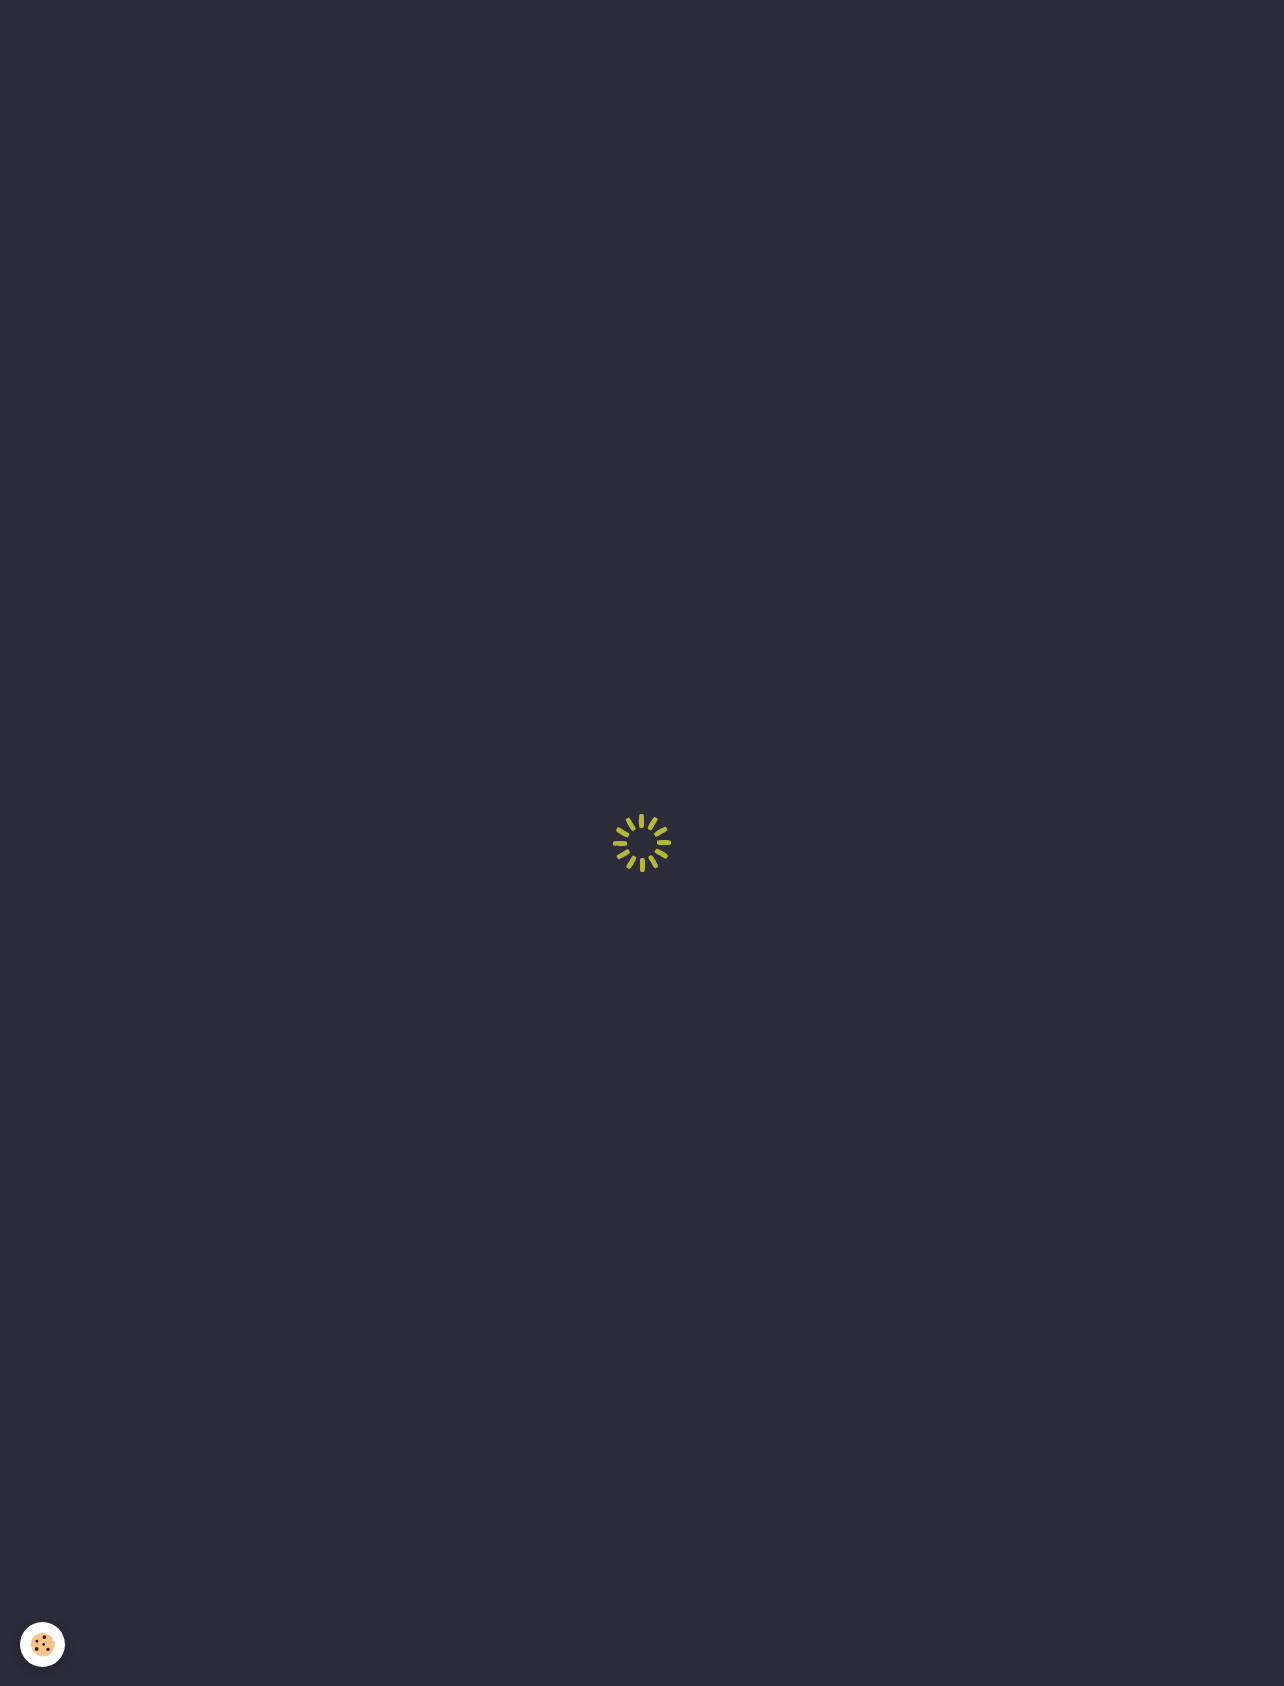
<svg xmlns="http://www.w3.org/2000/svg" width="1284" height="1686">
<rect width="100%" height="100%" fill="#2b2b3a"/>
<path fill="#b6b738" d="M640 814h3c1.5 1 1 6 1 7c0 1 .5 6-1 7h-3c-1.5 0-1.5-14 0-14zm15 3l2.5 1.5c1 1.5-2.5 5.5-3 6.5c-.5 1-2.5 5.5-4 5.5l-2.5-1.5c-1.5-1 5.5-13 7-12z"/>
<path fill="#b6b738" d="M666 827l1.5 2.5c0 1.5-4.5 3.5-5.5 4c-1 .5-5 4-6.5 3l-1.5-2.5c-.5-1.5 11.5-8.5 12-7zm5 14v3c-1 1.5-6 1-7 1c-1 0-6 .5-7-1v-3c0-1.5 14-1.5 14 0zm-3 15l-1.5 2.5c-1.5 1-5.5-2.5-6.5-3c-1-.5-5.5-2.5-5.5-4l1.5-2.5c1-1.5 13 5.5 12 7z"/>
<path fill="#b6b738" d="M658 867l-2.5 1.5c-1.5 0-3.5-4.5-4-5.5c-.5-1-4-5-3-6.5l2.5-1.5c1.5-.5 8.5 11.5 7 12zm-14 5h-3c-1.5-1-1-6-1-7c0-1-.5-6 1-7h3c1.5 0 1.5 14 0 14zm-15-3l-2.5-1.5c-1-1.5 2.5-5.5 3-6.5c.5-1 2.5-5.5 4-5.5l2.5 1.5c1.5 1-5.5 13-7 12z"/>
<path fill="#b6b738" d="M618 859l-1.5-2.5c0-1.5 4.5-3.5 5.5-4c1-.5 5-4 6.5-3l1.5 2.5c.5 1.5-11.5 8.5-12 7zm-5-14v-3c1-1.5 6-1 7-1c1 0 6-.5 7 1v3c0 1.5-14 1.5-14 0zm3-15l1.5-2.5c1.5-1 5.5 2.5 6.5 3c1 .5 5.5 2.5 5.5 4l-1.5 2.5c-1 1.5-13-5.5-12-7z"/>
<path fill="#b6b738" d="M626 819l2.5-1.5c1.5 0 3.5 4.5 4 5.5c.5 1 4 5 3 6.5l-2.5 1.5c-1.5 .5-8.5-11.5-7-12z"/>
<rect fill="#0000003d" filter="blur(5px)" x="20" y="1625" width="45" height="45" rx="22.5"/>
<circle fill="#fff" cx="42.5" cy="1644.5" r="22.5"/>
<image href="1.png" x="30" y="1632" width="25" height="25"/>
</svg>
